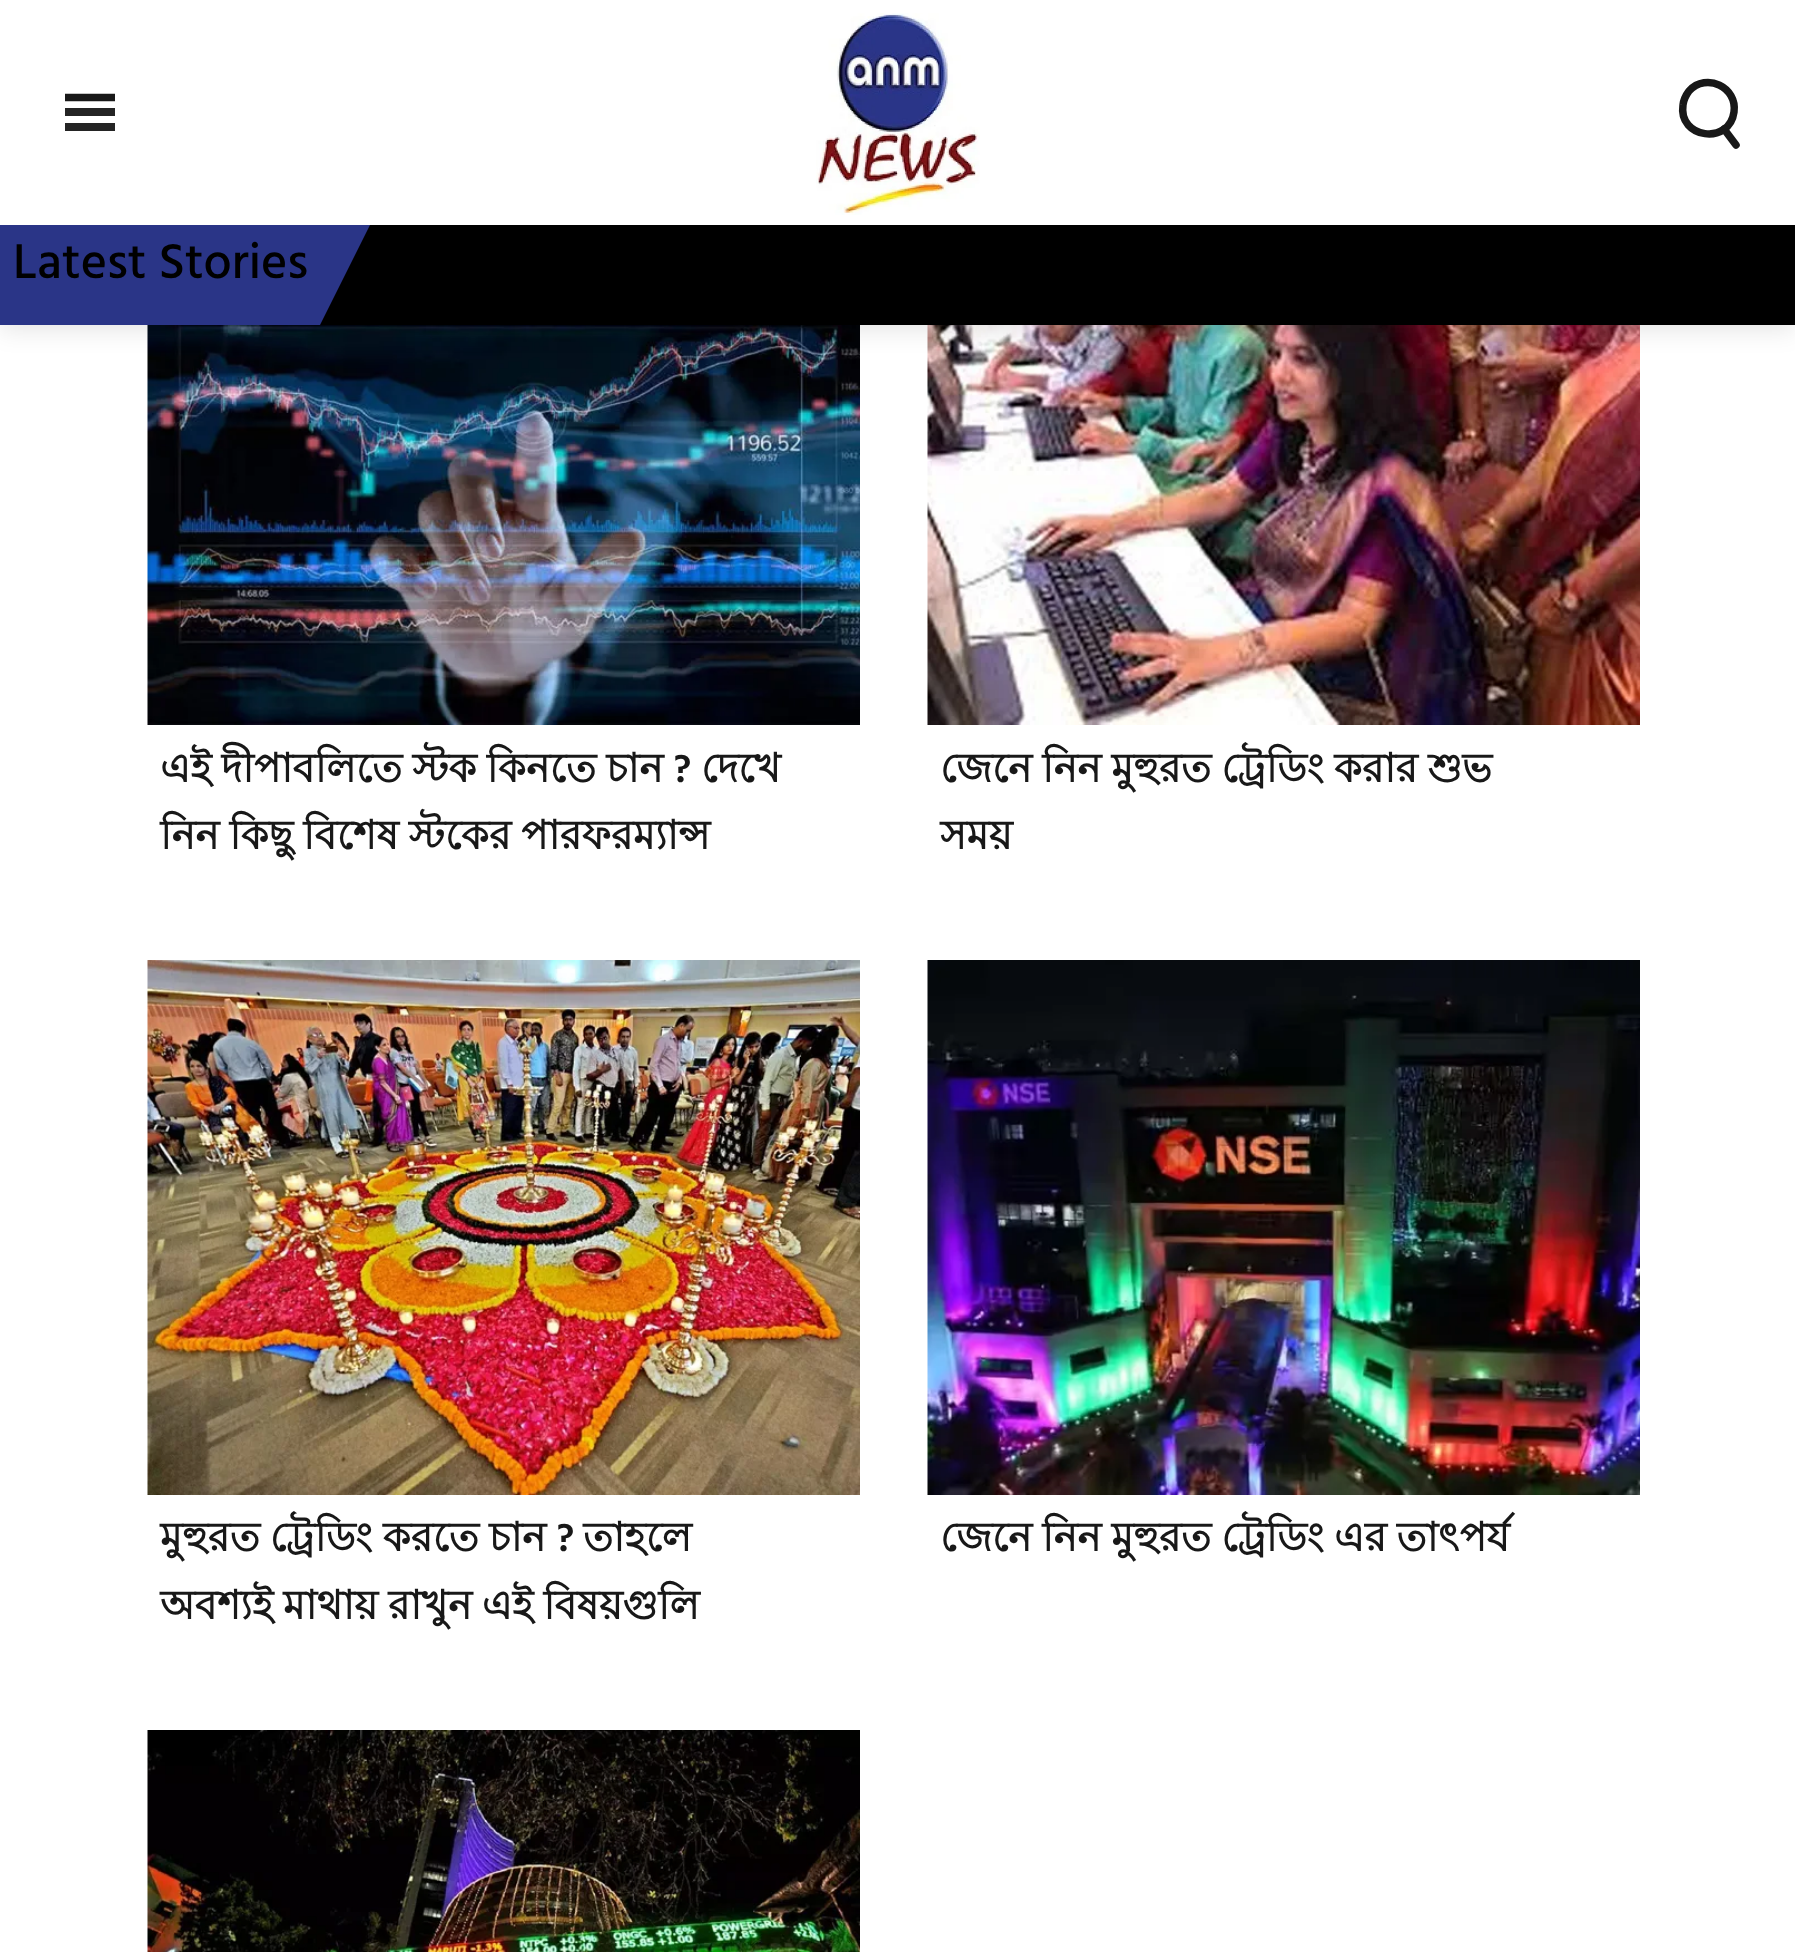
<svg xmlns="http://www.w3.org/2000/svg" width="1795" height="1952">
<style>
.a{font:500 50px Hind;fill:#000}
.b{font:bold 40px Lohit Bengali;fill:#181818}
.c{font:600 40px Hind;fill:#181818}
</style>
<defs>
<clipPath id="clip1"><path d="M148 1495h650v148H148z"/></clipPath>
</defs>
<rect width="100%" height="100%" fill="#fff"/>
<image href="2.png" x="147" y="325" width="713" height="400"/>
<image href="3.png" x="927" y="325" width="713" height="400"/>
<path fill="#0000001a" filter="blur(12.5px)" d="M0 5h1795v325H0z"/>
<path fill="#fff" d="M0 0h1795v225H0z"/>
<path fill="none" stroke="#181818" stroke-width="7.6" d="M65 97.5h50"/>
<path fill="#242424" d="M65 108h50v8H65z"/>
<path fill="#242424" d="M65 123h50v8H65z"/>
<image href="1.png" x="816" y="13" width="164" height="202"/>
<path fill="none" stroke="#181818" stroke-width="7.5" stroke-linecap="round" stroke-linejoin="round" d="M1734 112c-4.5 33.5-56 26.5-51-7c.5-5 3-10 6-14c17.5-19 48.5-3.5 45 21z"/>
<path fill="none" stroke="#181818" stroke-width="7.5" stroke-linecap="round" stroke-linejoin="round" d="M1736 145l-12-16"/>
<path fill="#2a3587" d="M0 225h320v100H0z"/>
<path fill="#000" d="M320 225h1475v100H320z"/>
<path fill="#2a3587" d="M320 325v-100h50z"/>
<image href="4.png" x="147" y="960" width="713" height="535"/>
<image href="5.png" x="927" y="960" width="713" height="535"/>
<image href="6.png" x="147" y="1730" width="713" height="222"/>
<text class="a" x="13" y="278">Latest Stories</text>
<text class="b" x="160" y="782" word-spacing="-1">এই দীপাবলিতে স্টক কিনতে চান</text>
<text class="c" x="673" y="782">?</text>
<text class="b" x="701" y="782">দেখে</text>
<text class="b" x="160" y="849" word-spacing="-1">নিন কিছু বিশেষ স্টকের পারফরম্যান্স</text>
<text class="b" x="940" y="782" word-spacing="-1">জেনে নিন মুহুরত ট্রেডিং করার শুভ</text>
<text class="b" x="940" y="849">সময়</text>
<g clip-path="url(#clip1)">
<text class="b" x="160" y="1551" word-spacing="-1">মুহুরত ট্রেডিং করতে চান</text>
</g>
<text class="c" x="556" y="1551">?</text>
<text class="b" x="583" y="1551">তাহলে</text>
<text class="b" x="160" y="1619" word-spacing="-1">অবশ্যই মাথায় রাখুন এই বিষয়গুলি</text>
<text class="b" x="940" y="1551" word-spacing="-1">জেনে নিন মুহুরত ট্রেডিং এর তাৎপর্য</text>
</svg>
